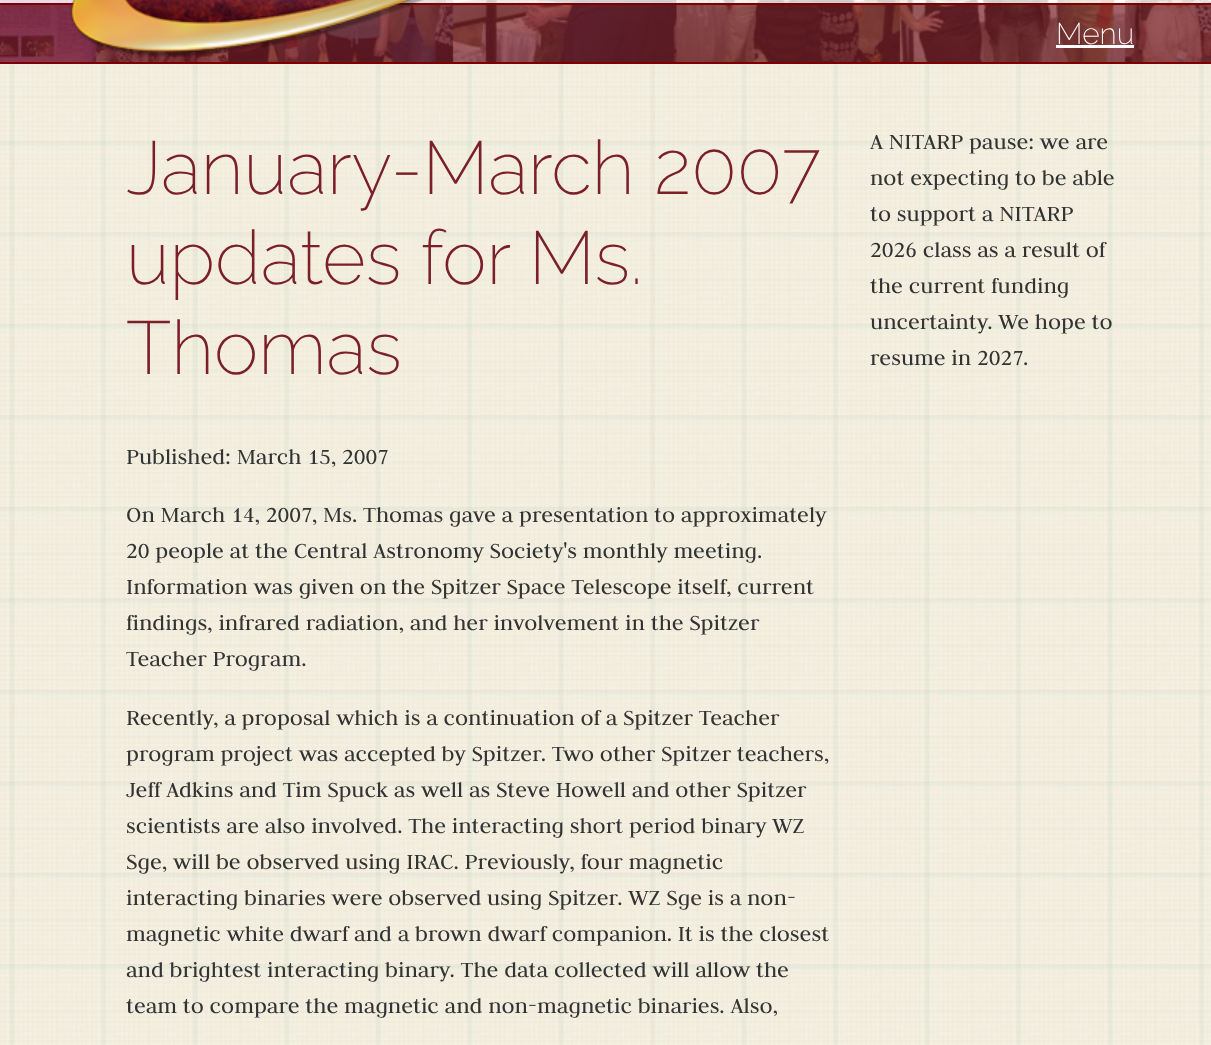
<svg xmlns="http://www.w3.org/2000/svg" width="1211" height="1045">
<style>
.a{font:200 30px Raleway;fill:#fff}
.b{font:200 75px Raleway;fill:#7b202a}
.c{font:24px Judson;fill:#333}
</style>
<rect width="100%" height="100%" fill="#fff"/>
<image href="1.png" x="0" y="64" width="1211" height="981"/>
<image href="2.png" x="0" y="0" width="1211" height="62"/>
<path fill="#ffffffcc" d="M0 0h1211v3H0z"/>
<path fill="#7b202ab3" d="M0 5h1211v57H0z"/>
<path fill="#800000" d="M0 3h1211v2H0z"/>
<image href="3.png" x="70" y="0" width="354" height="57"/>
<path fill="#800000" d="M0 62h1211v2H0z"/>
<path fill="#fff" d="M1056 45h78v3H1056z"/>
<text class="a" x="1056" y="44">Menu</text>
<text class="b" x="126" y="194">January-March 2007</text>
<text class="b" x="126" y="284">updates for Ms.</text>
<text class="b" x="126" y="374">Thomas</text>
<text class="c" x="126" y="464">Published: March 15, 2007</text>
<text class="c" x="126" y="522">On March 14, 2007, Ms. Thomas gave a presentation to approximately</text>
<text class="c" x="126" y="558">20 people at the Central Astronomy Society's monthly meeting.</text>
<text class="c" x="126" y="594">Information was given on the Spitzer Space Telescope itself, current</text>
<text class="c" x="126" y="630">findings, infrared radiation, and her involvement in the Spitzer</text>
<text class="c" x="126" y="666">Teacher Program.</text>
<text class="c" x="126" y="725">Recently, a proposal which is a continuation of a Spitzer Teacher</text>
<text class="c" x="126" y="761">program project was accepted by Spitzer. Two other Spitzer teachers,</text>
<text class="c" x="126" y="797">Jeff Adkins and Tim Spuck as well as Steve Howell and other Spitzer</text>
<text class="c" x="126" y="833">scientists are also involved. The interacting short period binary WZ</text>
<text class="c" x="126" y="869">Sge, will be observed using IRAC. Previously, four magnetic</text>
<text class="c" x="126" y="905">interacting binaries were observed using Spitzer. WZ Sge is a non-</text>
<text class="c" x="126" y="941">magnetic white dwarf and a brown dwarf companion. It is the closest</text>
<text class="c" x="126" y="977">and brightest interacting binary. The data collected will allow the</text>
<text class="c" x="126" y="1013">team to compare the magnetic and non-magnetic binaries. Also,</text>
<text class="c" x="870" y="149">A NITARP pause: we are</text>
<text class="c" x="870" y="185">not expecting to be able</text>
<text class="c" x="870" y="221">to support a NITARP</text>
<text class="c" x="870" y="257">2026 class as a result of</text>
<text class="c" x="870" y="293">the current funding</text>
<text class="c" x="870" y="329">uncertainty. We hope to</text>
<text class="c" x="870" y="365">resume in 2027.</text>
</svg>
